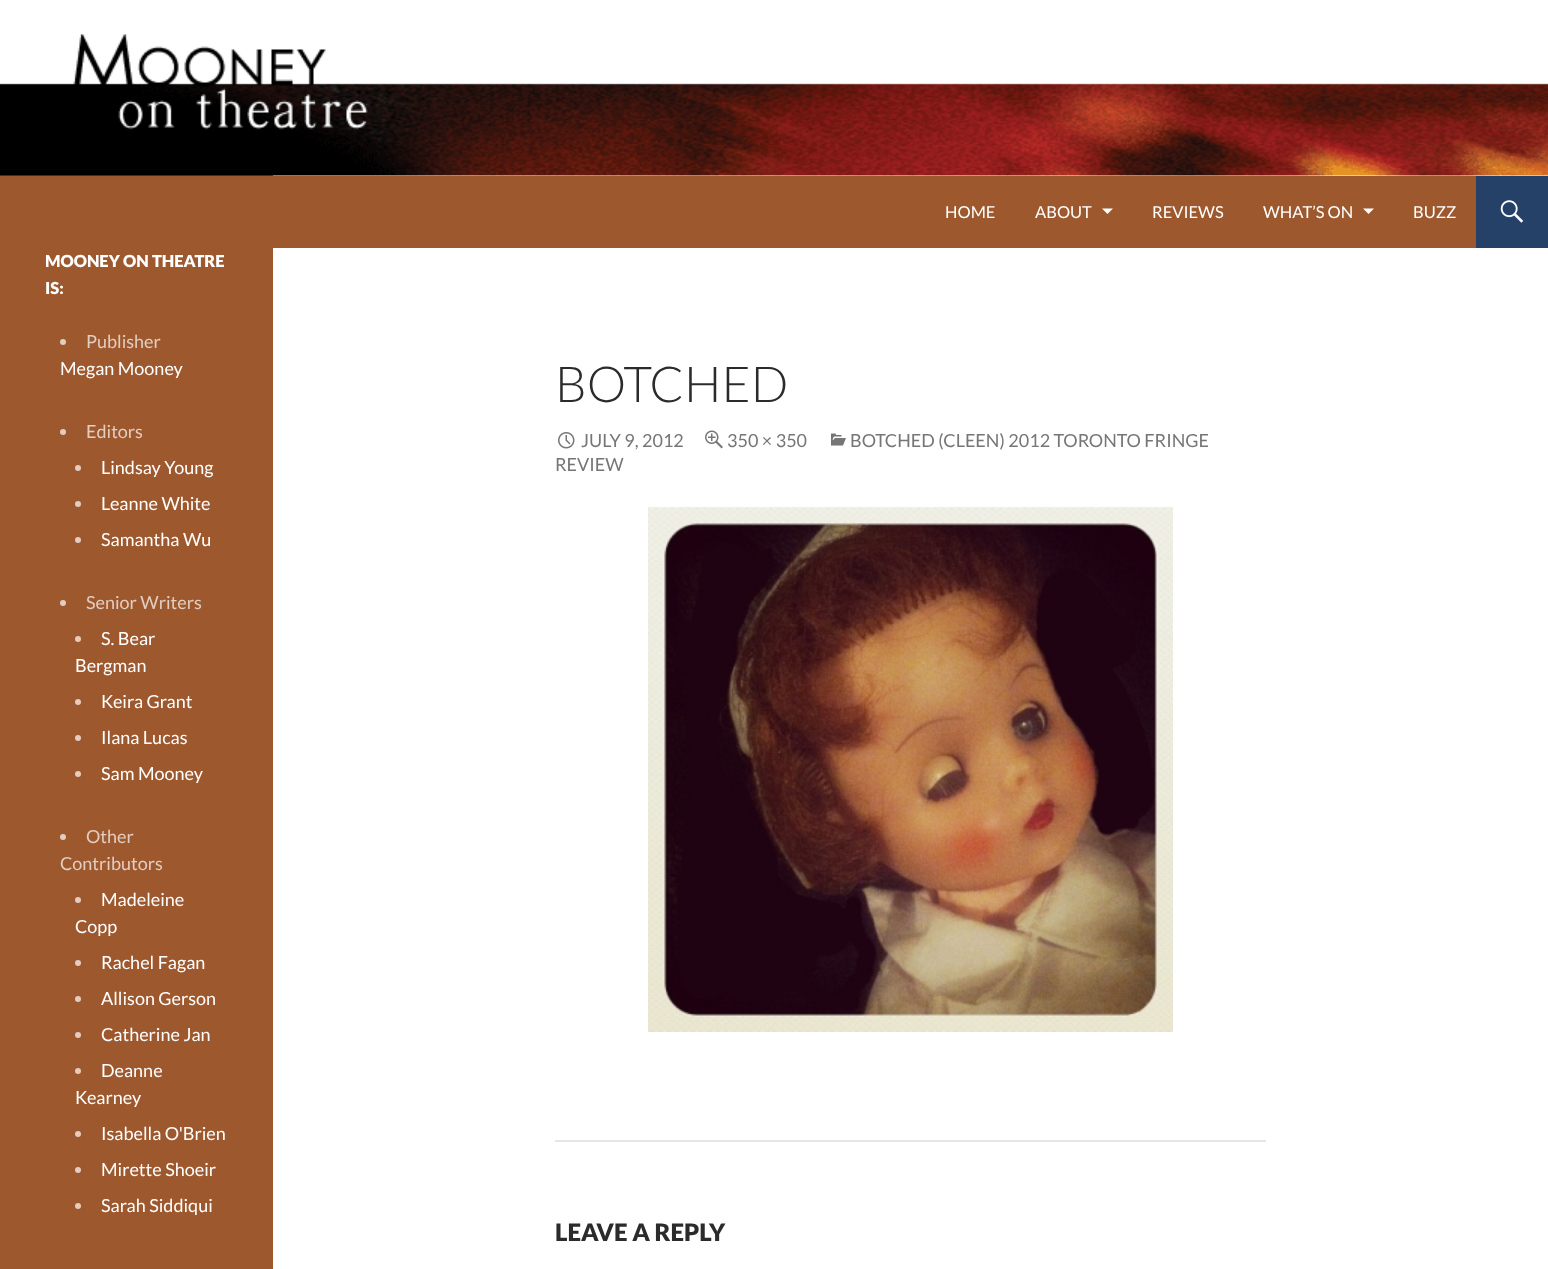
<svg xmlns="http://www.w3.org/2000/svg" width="1548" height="1269">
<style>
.a{font:16.5px Lato;fill:#fff}
.b{font:900 16.5px Lato;fill:#fff}
.c{font:18px Lato;fill:#e2cdc0}
.d{font:18px Lato;fill:#fff}
.e{font:300 49.5px Lato;fill:#2b2b2b}
.f{font:18px Lato;fill:#767676}
.g{font:900 24px Lato;fill:#2b2b2b}
</style>
<rect width="100%" height="100%" fill="#fff"/>
<path fill="#9d582e" d="M0 175h273v1094H0z"/>
<image href="1.png" x="0" y="0" width="1548" height="176"/>
<path fill="#9d582e" d="M273 176h1203v72H273z"/>
<path fill="#fff" d="M1102 208.5l5.5 5.5l5.5-5.5z"/>
<path fill="#fff" d="M1363 208.5l5.5 5.5l5.5-5.5z"/>
<path fill="#254167" d="M1476 176h72v72H1476z"/>
<image href="2.png" x="1500" y="200" width="24" height="23"/>
<circle fill="#e2cdc0" cx="63" cy="342" r="3"/>
<circle fill="#e2cdc0" cx="63" cy="432" r="3"/>
<circle fill="#e2cdc0" cx="78" cy="468" r="3"/>
<circle fill="#e2cdc0" cx="78" cy="504" r="3"/>
<circle fill="#e2cdc0" cx="78" cy="540" r="3"/>
<circle fill="#e2cdc0" cx="63" cy="603" r="3"/>
<circle fill="#e2cdc0" cx="78" cy="639" r="3"/>
<circle fill="#e2cdc0" cx="78" cy="702" r="3"/>
<circle fill="#e2cdc0" cx="78" cy="738" r="3"/>
<circle fill="#e2cdc0" cx="78" cy="774" r="3"/>
<circle fill="#e2cdc0" cx="63" cy="837" r="3"/>
<circle fill="#e2cdc0" cx="78" cy="900" r="3"/>
<circle fill="#e2cdc0" cx="78" cy="963" r="3"/>
<circle fill="#e2cdc0" cx="78" cy="999" r="3"/>
<circle fill="#e2cdc0" cx="78" cy="1035" r="3"/>
<circle fill="#e2cdc0" cx="78" cy="1071" r="3"/>
<circle fill="#e2cdc0" cx="78" cy="1134" r="3"/>
<circle fill="#e2cdc0" cx="78" cy="1170" r="3"/>
<circle fill="#e2cdc0" cx="78" cy="1206" r="3"/>
<image href="3.png" x="831" y="433" width="15" height="13"/>
<image href="4.png" x="558" y="432" width="17" height="17"/>
<image href="5.png" x="705" y="430" width="18" height="19"/>
<image href="6.png" x="648" y="507" width="525" height="525"/>
<path fill="#e6e6e6" d="M555 1140h711v2H555z"/>
<text class="a" x="945" y="218">HOME</text>
<text class="a" x="1035" y="218">ABOUT</text>
<text class="a" x="1152" y="218">REVIEWS</text>
<text class="a" x="1263" y="218">WHAT’S ON</text>
<text class="a" x="1413" y="218">BUZZ</text>
<text class="b" x="45" y="267">MOONEY ON THEATRE</text>
<text class="b" x="45" y="294">IS:</text>
<text class="c" x="86" y="348">Publisher</text>
<text class="d" x="60" y="375">Megan Mooney</text>
<text class="c" x="86" y="438">Editors</text>
<text class="d" x="101" y="474">Lindsay Young</text>
<text class="d" x="101" y="510">Leanne White</text>
<text class="d" x="101" y="546">Samantha Wu</text>
<text class="c" x="86" y="609">Senior Writers</text>
<text class="d" x="101" y="645">S. Bear</text>
<text class="d" x="75" y="672">Bergman</text>
<text class="d" x="101" y="708">Keira Grant</text>
<text class="d" x="101" y="744">Ilana Lucas</text>
<text class="d" x="101" y="780">Sam Mooney</text>
<text class="c" x="86" y="843">Other</text>
<text class="c" x="60" y="870">Contributors</text>
<text class="d" x="101" y="906">Madeleine</text>
<text class="d" x="75" y="933">Copp</text>
<text class="d" x="101" y="969">Rachel Fagan</text>
<text class="d" x="101" y="1005">Allison Gerson</text>
<text class="d" x="101" y="1041">Catherine Jan</text>
<text class="d" x="101" y="1077">Deanne</text>
<text class="d" x="75" y="1104">Kearney</text>
<text class="d" x="101" y="1140">Isabella O'Brien</text>
<text class="d" x="101" y="1176">Mirette Shoeir</text>
<text class="d" x="101" y="1212">Sarah Siddiqui</text>
<text class="e" x="555" y="402">BOTCHED</text>
<text class="f" x="850" y="447">BOTCHED (CLEEN) 2012 TORONTO FRINGE</text>
<text class="f" x="555" y="471">REVIEW</text>
<text class="f" x="581" y="447">JULY 9, 2012</text>
<text class="f" x="727" y="447">350 × 350</text>
<text class="g" x="555" y="1241">LEAVE A REPLY</text>
</svg>
